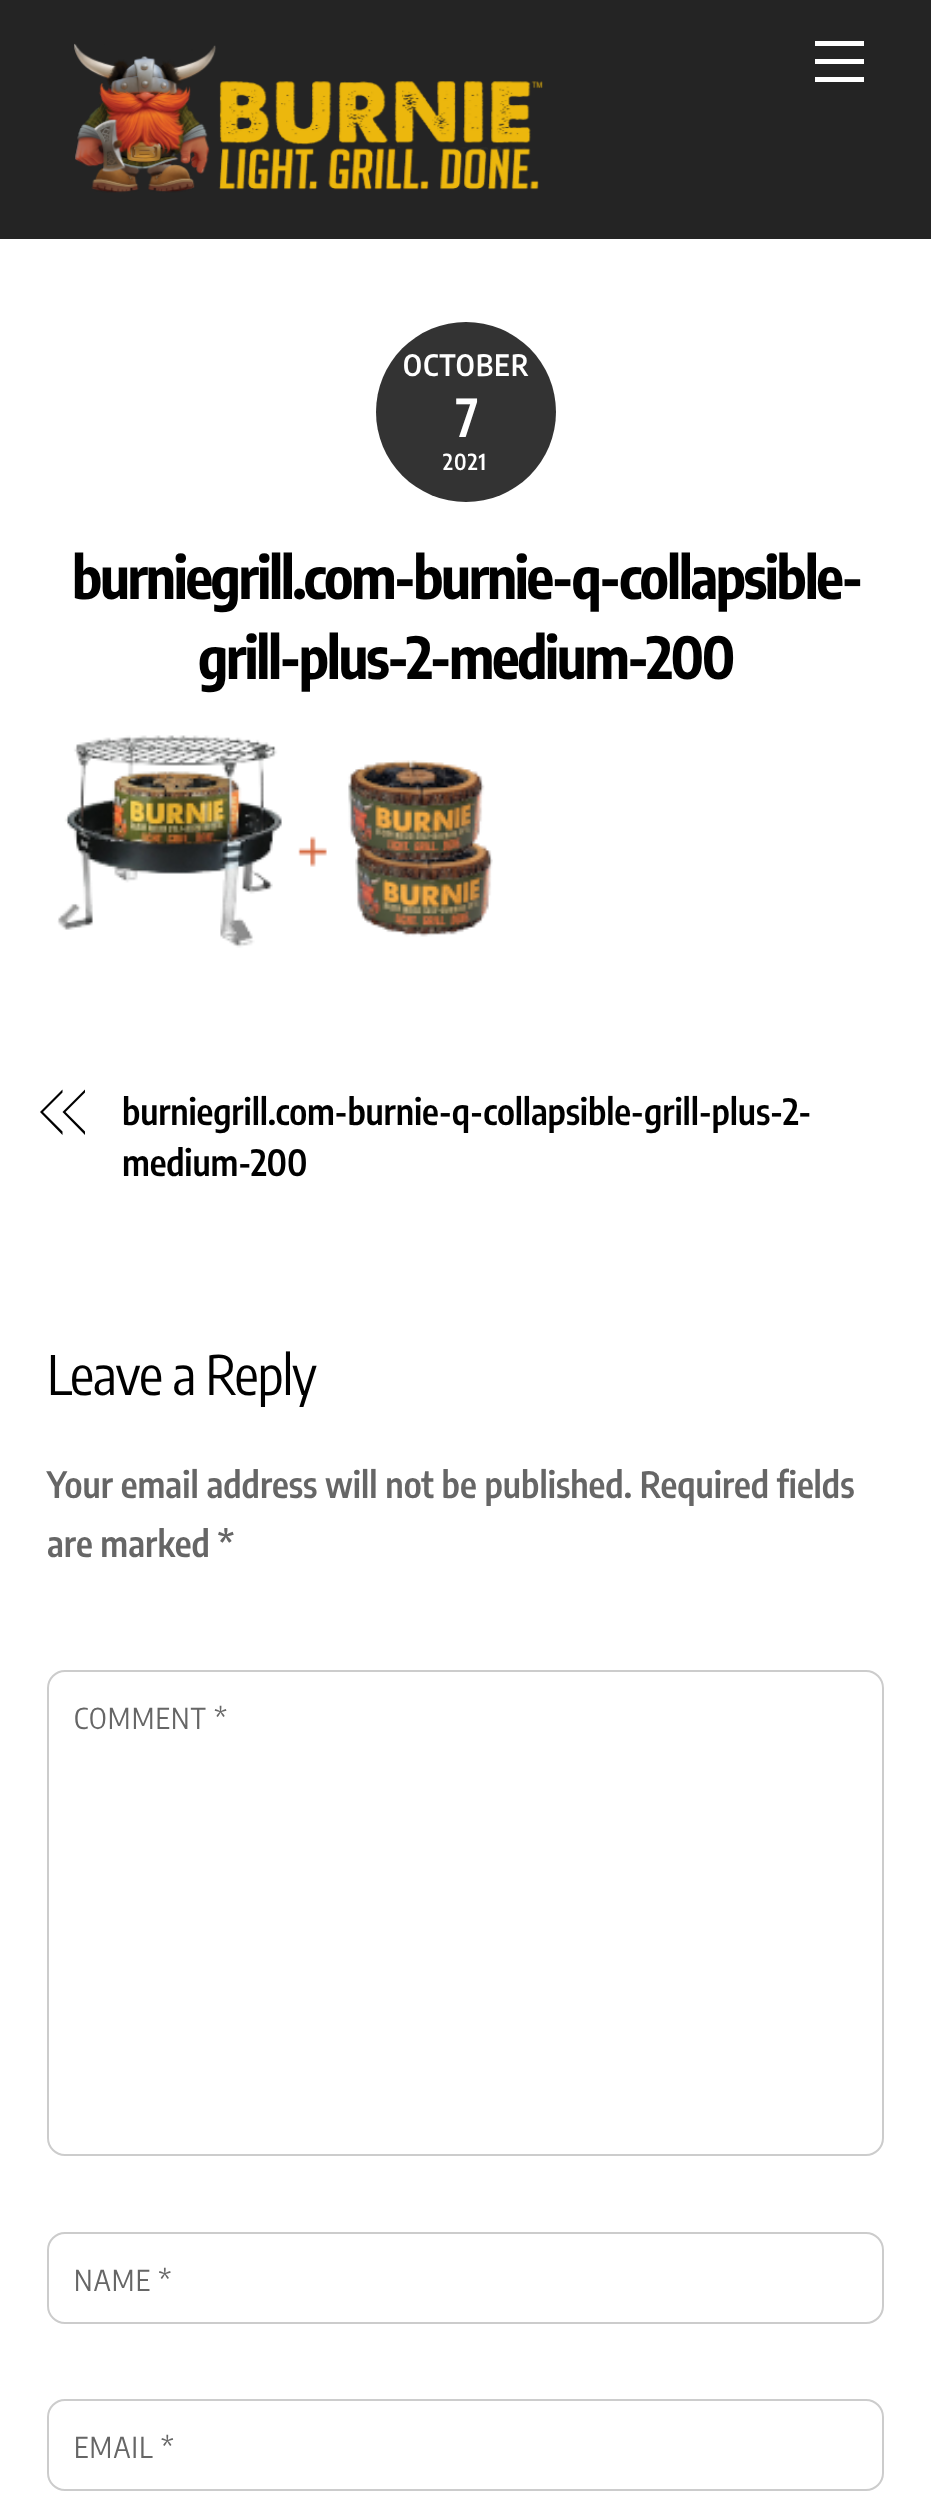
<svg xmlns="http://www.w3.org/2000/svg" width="931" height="2497">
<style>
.a{font:600 29.25px Encode Sans Condensed;letter-spacing:1.25px;fill:#fff}
.b{font:600 52px Encode Sans Condensed;letter-spacing:-3px;fill:#fff}
.c{font:600 22px Encode Sans Condensed;letter-spacing:1.25px;fill:#fff}
.d{font:bold 57.6px Encode Sans Condensed;letter-spacing:-2.3px;fill:#000}
.e{font:600 36px Encode Sans Condensed;letter-spacing:-0.18px;fill:#000}
.f{font:54px Encode Sans Condensed;letter-spacing:-1.1px;fill:#000}
.g{font:600 36px Encode Sans Condensed;fill:#666}
.h{font:28.75px Encode Sans Condensed;letter-spacing:1.25px;fill:#666}
</style>
<rect width="100%" height="100%" fill="#fff"/>
<path fill="#242424" d="M0 0h931v239H0z"/>
<image href="1.png" x="74" y="43" width="469" height="150"/>
<path fill="#fff" d="M815 77h49v5H815z"/>
<path fill="#fff" d="M815 41h49v5H815z"/>
<path fill="#fff" d="M815 59h49v5H815z"/>
<circle fill="#333" cx="466" cy="412" r="90"/>
<image href="2.png" x="57" y="735" width="436" height="213"/>
<path fill="#000" d="M40 1112l22.5-22.5v3l-19.5 19.5zm22.5 23l-22.5-23h3l19.5 19.5z"/>
<path fill="#000" d="M62.5 1112l22.5-22.5v3l-19.5 19.5zm22.5 23l-22.5-23h3l19.5 19.5z"/>
<rect fill="none" stroke="#ccc" stroke-width="2" x="48" y="1671" width="835" height="484" rx="17"/>
<rect fill="none" stroke="#ccc" stroke-width="2" x="48" y="2233" width="835" height="90" rx="17"/>
<rect fill="none" stroke="#ccc" stroke-width="2" x="48" y="2400" width="835" height="90" rx="17"/>
<text class="a" x="403" y="376">OCTOBER</text>
<text class="b" x="456" y="437">7</text>
<text class="c" x="443" y="470">2021</text>
<text class="d" x="72" y="599">burniegrill.com-burnie-q-collapsible-</text>
<text class="d" x="198" y="679">grill-plus-2-medium-200</text>
<text class="e" x="122" y="1125">burniegrill.com-burnie-q-collapsible-grill-plus-2-</text>
<text class="e" x="122" y="1176">medium-200</text>
<text class="f" x="47" y="1395">Leave a Reply</text>
<text class="g" x="47" y="1498">Your email address will not be published. Required fields</text>
<text class="g" x="47" y="1557">are marked *</text>
<text class="h" x="74" y="1729">COMMENT *</text>
<text class="h" x="74" y="2291">NAME *</text>
<text class="h" x="74" y="2458">EMAIL *</text>
</svg>
